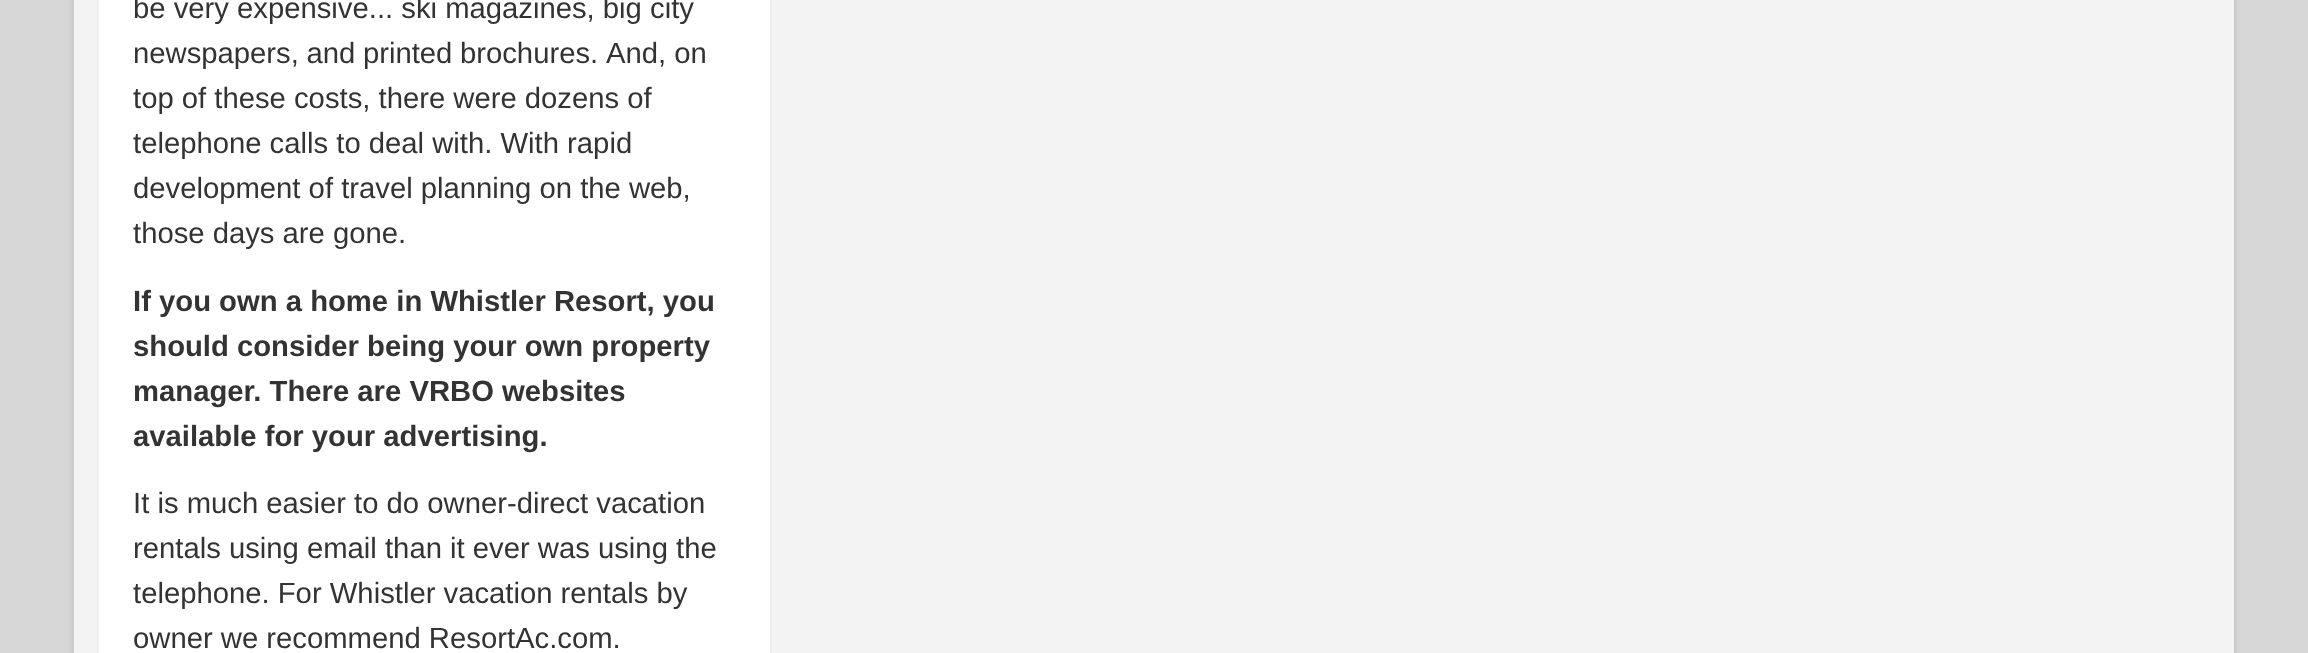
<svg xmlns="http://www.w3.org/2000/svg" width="2308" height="653">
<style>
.a{font:29.25px Liberation Sans;fill:#333}
.b{font:bold 29.25px Liberation Sans;fill:#333}
</style>
<rect width="100%" height="100%" fill="#d7d7d7"/>
<rect fill="#00000026" filter="blur(3.5px)" x="74" y="-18" width="2160" height="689" rx="7"/>
<path fill="#f3f3f3" d="M74 0h2160v653H74z"/>
<path fill="#fff" stroke="#eee" stroke-width="2" d="M98 -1h673v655H98z"/>
<text class="a" x="133" y="18">be very expensive... ski magazines, big city</text>
<text class="a" x="133" y="63" word-spacing="-0.5">newspapers, and printed brochures.</text>
<text class="a" x="606" y="63">And, on</text>
<text class="a" x="133" y="108">top of these costs, there were dozens of</text>
<text class="a" x="133" y="153">telephone calls to deal with. With rapid</text>
<text class="a" x="133" y="198">development of travel planning on the web,</text>
<text class="a" x="133" y="243">those days are gone.</text>
<text class="b" x="133" y="311">If you own a home in Whistler Resort, you</text>
<text class="b" x="133" y="356">should consider being your own property</text>
<text class="b" x="133" y="401">manager. There are VRBO websites</text>
<text class="b" x="133" y="446">available for your advertising.</text>
<text class="a" x="133" y="513">It is much easier to do owner-direct vacation</text>
<text class="a" x="133" y="558">rentals using email than it ever was using the</text>
<text class="a" x="133" y="603">telephone. For Whistler vacation rentals by</text>
<text class="a" x="133" y="648">owner we recommend ResortAc.com.</text>
</svg>
